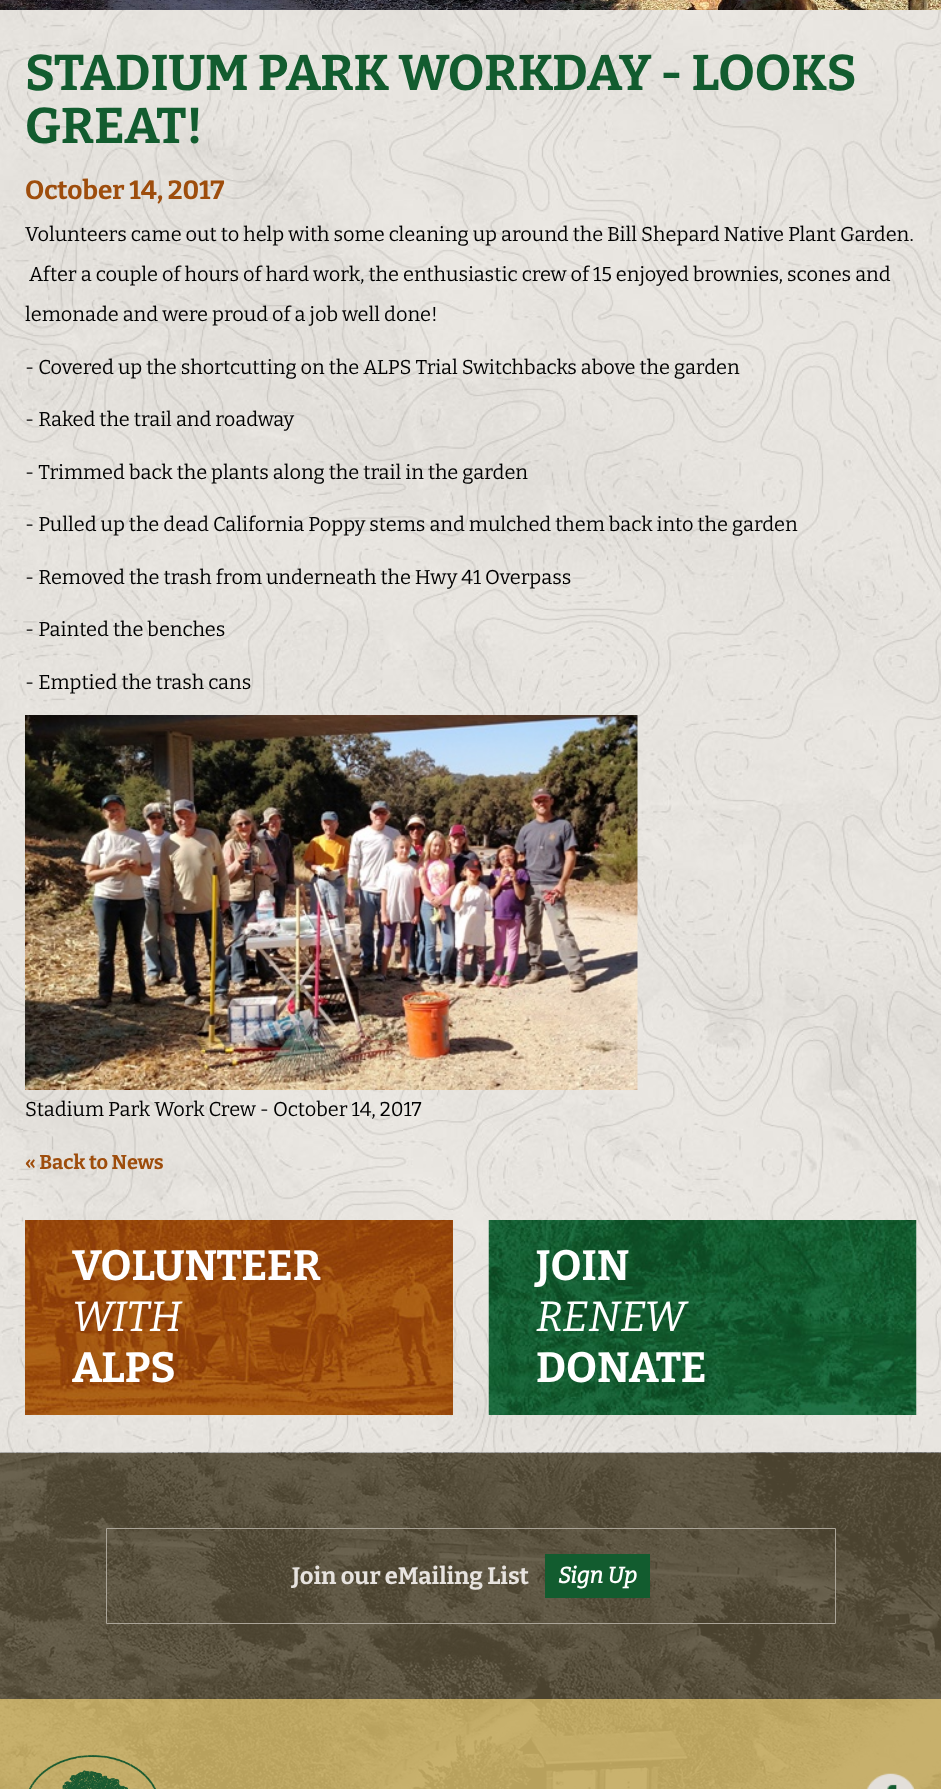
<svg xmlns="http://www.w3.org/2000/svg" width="941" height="1789">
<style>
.a{font:bold 50px Bitter;fill:#125c2f}
.b{font:bold 26.25px Bitter;fill:#9e4d0c}
.c{font:20px Bitter;fill:#000}
.d{font:bold 20px Bitter;fill:#9e4d0c}
.e{font:bold 42.25px Bitter;fill:#fff}
.f{font:italic 100 42.25px Bitter;fill:#fff}
.g{font:bold 23.75px Bitter;fill:#e7e3df}
.h{font:italic bold 22.5px Bitter;fill:#fff}
</style>
<rect width="100%" height="100%" fill="#fff"/>
<image href="1.png" x="0" y="10" width="941" height="1443"/>
<image href="2.png" x="0" y="0" width="941" height="10"/>
<image href="3.png" x="25" y="715" width="613" height="375"/>
<path fill="#9e4d0c" d="M452 1220h1v195H452z"/>
<image href="4.png" x="25" y="1220" width="428" height="195"/>
<image href="5.png" x="488" y="1220" width="429" height="195"/>
<image href="6.png" x="0" y="1452" width="941" height="337"/>
<path fill="#5c523bcc" d="M0 1453h941v246H0z"/>
<path fill="none" stroke="#aba599" d="M106.5 1528.5h729v95H106.5z"/>
<path fill="#125c2f" d="M545 1554h105v44H545z"/>
<path fill="#ccb267e6" d="M0 1699h941v90H0z"/>
<image href="7.png" x="29" y="1755" width="127" height="34"/>
<image href="8.png" x="866" y="1773" width="49" height="16"/>
<text class="a" x="25" y="90">STADIUM PARK WORKDAY - LOOKS</text>
<text class="a" x="25" y="143">GREAT!</text>
<text class="b" x="25" y="199">October 14, 2017</text>
<text class="c" x="25" y="241">Volunteers came out to help with some cleaning up around the Bill Shepard Native Plant Garden.</text>
<text class="c" x="29" y="281">After a couple of hours of hard work, the enthusiastic crew of 15 enjoyed brownies, scones and</text>
<text class="c" x="25" y="321">lemonade and were proud of a job well done!</text>
<text class="c" x="25" y="374">- Covered up the shortcutting on the ALPS Trial Switchbacks above the garden</text>
<text class="c" x="25" y="426">- Raked the trail and roadway</text>
<text class="c" x="25" y="479">- Trimmed back the plants along the trail in the garden</text>
<text class="c" x="25" y="531">- Pulled up the dead California Poppy stems and mulched them back into the garden</text>
<text class="c" x="25" y="584">- Removed the trash from underneath the Hwy 41 Overpass</text>
<text class="c" x="25" y="636">- Painted the benches</text>
<text class="c" x="25" y="689">- Emptied the trash cans</text>
<text class="c" x="25" y="1116">Stadium Park Work Crew - October 14, 2017</text>
<text class="d" x="25" y="1169">« Back to News</text>
<text class="e" x="72" y="1280">VOLUNTEER</text>
<text class="f" x="72" y="1331">WITH</text>
<text class="e" x="72" y="1382">ALPS</text>
<text class="e" x="536" y="1280">JOIN</text>
<text class="f" x="536" y="1331">RENEW</text>
<text class="e" x="536" y="1382">DONATE</text>
<text class="g" x="292" y="1584">Join our eMailing List</text>
<text class="h" x="558" y="1583">Sign Up</text>
</svg>
